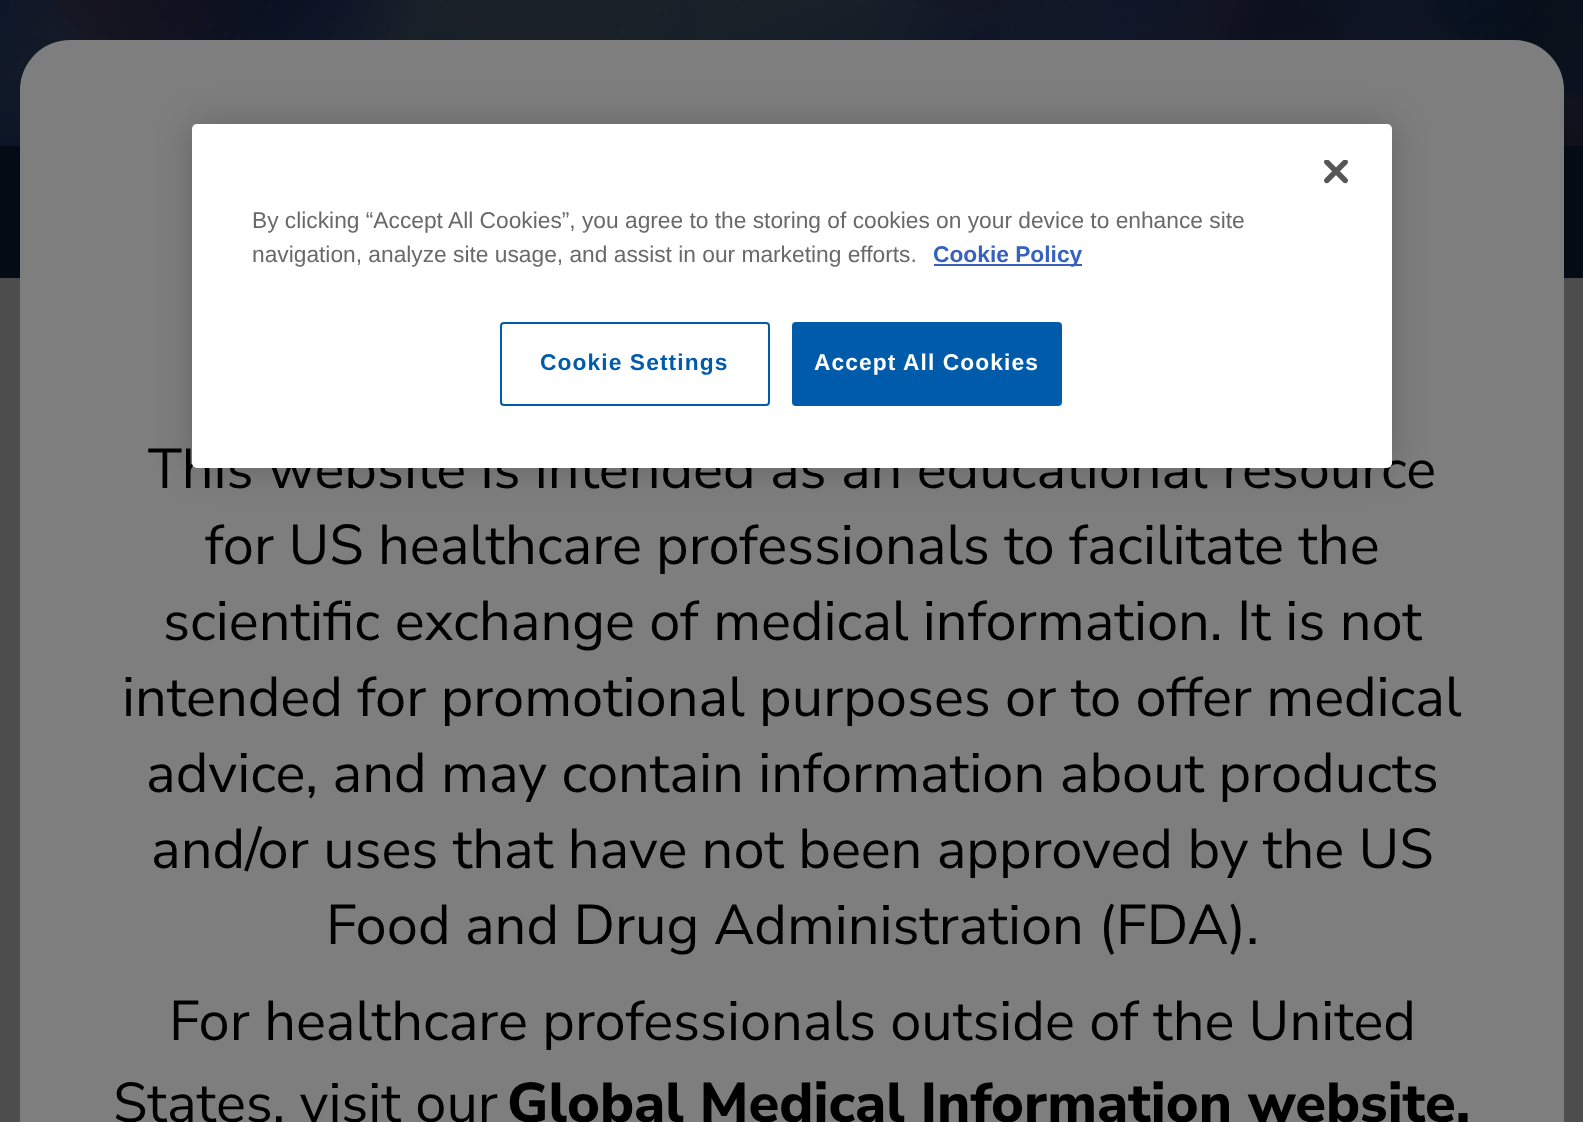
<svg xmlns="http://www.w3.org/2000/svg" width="1583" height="1122">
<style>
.a{font:200 56px Nunito Sans;fill:#000}
.b{font:bold 22.75px Liberation Sans;letter-spacing:1.1px;fill:#005cab}
.c{font:bold 22.75px Liberation Sans;letter-spacing:1.1px;fill:#fff}
.d{font:bold 22.75px Liberation Sans;fill:#3860be}
.e{font:22.75px Liberation Sans;fill:#696969}
.f{font:200 56px 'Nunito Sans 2';fill:#000}
</style>
<rect width="100%" height="100%" fill="#030c15"/>
<image href="2.png" x="0" y="0" width="1583" height="146"/>
<path fill="#4d4d4d" d="M0 278h1583v844H0z"/>
<rect fill="#7e7e7e" x="20" y="40" width="1544" height="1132" rx="50"/>
<rect fill="#00000033" filter="blur(18px)" x="192" y="124" width="1200" height="344" rx="5"/>
<text class="a" x="148" y="488">This website is intended as an educational resource</text>
<rect fill="#fff" x="192" y="124" width="1200" height="344" rx="5"/>
<image href="1.png" x="1324" y="160" width="24" height="24"/>
<rect fill="none" stroke="#005cab" stroke-width="2" x="501" y="323" width="268" height="82" rx="3"/>
<text class="b" x="540" y="370">Cookie Settings</text>
<rect fill="#005cab" stroke="#005cab" stroke-width="2" x="793" y="323" width="268" height="82" rx="3"/>
<text class="c" x="814" y="370">Accept All Cookies</text>
<path fill="#3860be" d="M934 264h148v2H934z"/>
<text class="d" x="933" y="262">Cookie Policy</text>
<text class="e" x="252" y="262">navigation, analyze site usage, and assist in our marketing efforts.</text>
<text class="e" x="252" y="228">By clicking “Accept All Cookies”, you agree to the storing of cookies on your device to enhance site</text>
<text class="a" x="205" y="564">for US healthcare professionals to facilitate the</text>
<text class="a" x="163" y="640">scientific exchange of medical information. It is not</text>
<text class="a" x="122" y="716">intended for promotional purposes or to offer medical</text>
<text class="a" x="146" y="792">advice, and may contain information about products</text>
<text class="a" x="151" y="868">and/or uses that have not been approved by the US</text>
<text class="a" x="326" y="944">Food and Drug Administration (FDA).</text>
<text class="a" x="169" y="1040">For healthcare professionals outside of the United</text>
<text class="a" x="113" y="1122">States, visit our</text>
<text class="f" x="507" y="1122">Global Medical Information website.</text>
</svg>
